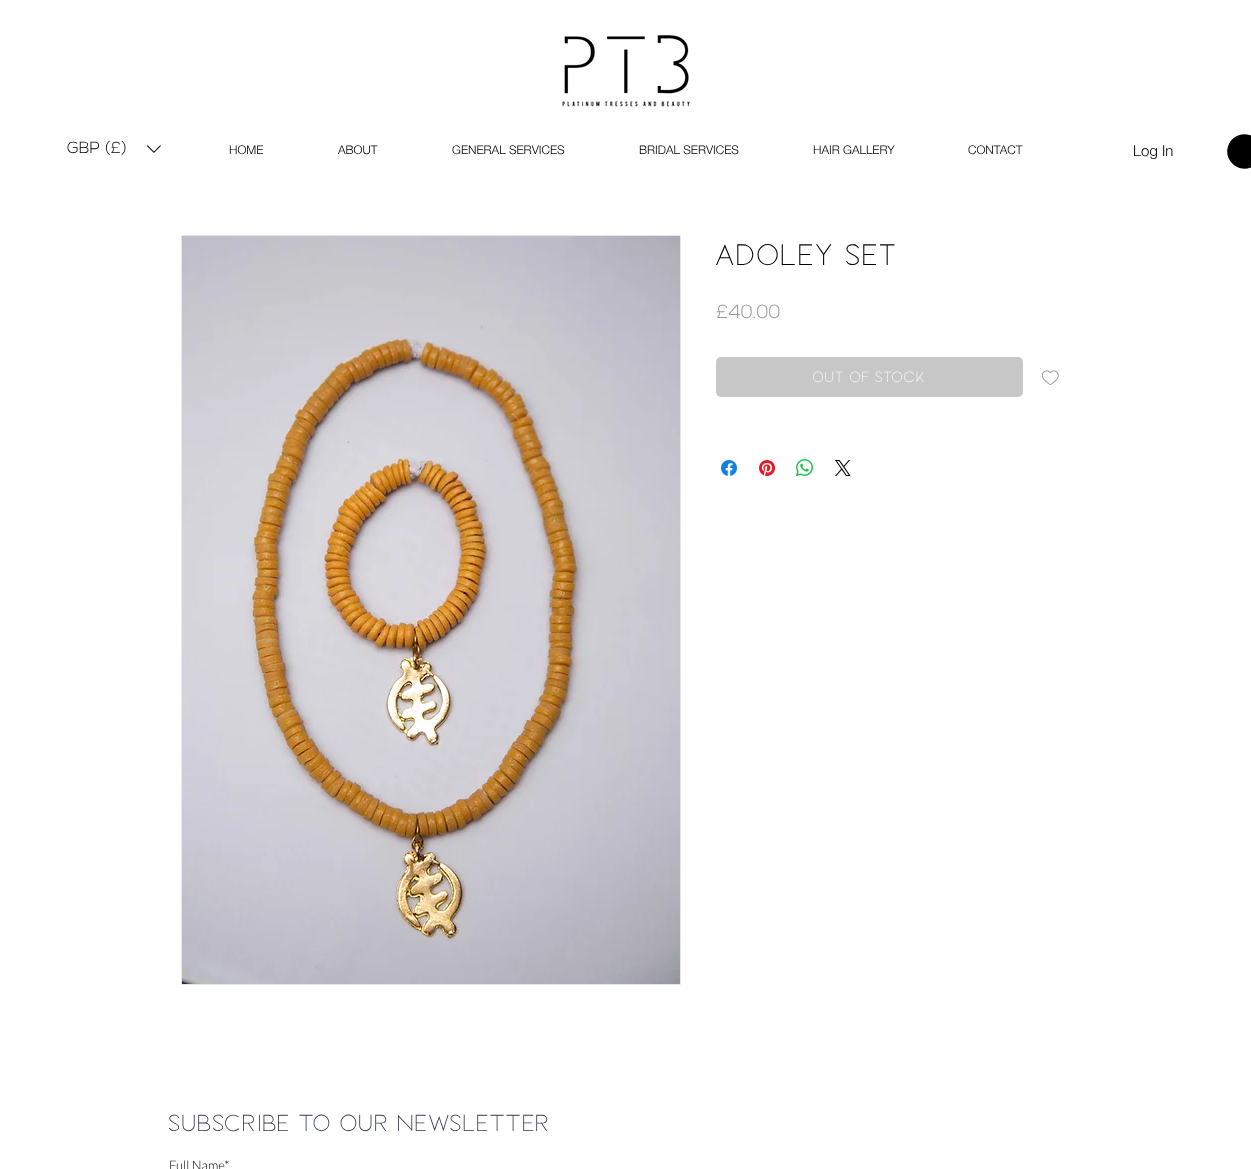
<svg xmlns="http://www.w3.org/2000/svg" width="1251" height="1169">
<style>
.a{font:300 16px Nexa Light;fill:#000}
.b{font:300 12px 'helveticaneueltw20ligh';fill:#000}
.c{font:300 15px 'helveticaneueltw20ligh';fill:#000}
.d{font:32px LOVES;fill:#000}
.e{font:300 19px Nexa Light;fill:#999997}
.f{font:16px LOVES;fill:#fff}
.g{font:25px LOVES;fill:#373b4d}
.h{font:300 13px Lato;fill:#000}
</style>
<rect width="100%" height="100%" fill="#fff"/>
<image href="1.png" x="562" y="35" width="128" height="72"/>
<image href="2.png" x="146" y="145" width="15" height="8"/>
<path fill="#000" d="M1249.5 135c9 2.5 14.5 12 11.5 21c-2.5 9.5-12 14.5-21.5 12c-9-3-14.5-12.5-11.5-21.5c2.5-9 12-14.5 21.5-11.5z"/>
<path fill="none" stroke="#e8e6e6" d="M181.5 235.5h499v749H181.5z"/>
<image href="3.png" x="182" y="236" width="498" height="748"/>
<rect fill="#c7c7c7" x="716" y="357" width="307" height="40" rx="5"/>
<image href="4.png" x="1041" y="370" width="18" height="15"/>
<image href="5.png" x="721" y="460" width="16" height="16"/>
<image href="6.png" x="759" y="460" width="16" height="16"/>
<image href="7.png" x="796" y="459" width="17" height="17"/>
<image href="8.png" x="835" y="460" width="16" height="16"/>
<text class="a" x="67" y="153">GBP (£)</text>
<text class="b" x="229" y="154">HOME</text>
<text class="b" x="338" y="154">ABOUT</text>
<text class="b" x="452" y="154">GENERAL SERVICES</text>
<text class="b" x="639" y="154">BRIDAL SERVICES</text>
<text class="b" x="813" y="154">HAIR GALLERY</text>
<text class="b" x="968" y="154">CONTACT</text>
<text class="c" x="1133" y="156">Log In</text>
<text class="d" x="716" y="265">Adoley Set</text>
<text class="e" x="716" y="318">£40.00</text>
<text class="f" x="813" y="382">Out of Stock</text>
<text class="g" x="169" y="1131">SUBSCRIBE TO OUR NEWSLETTER</text>
<text class="h" x="169" y="1170">Full Name*</text>
</svg>
